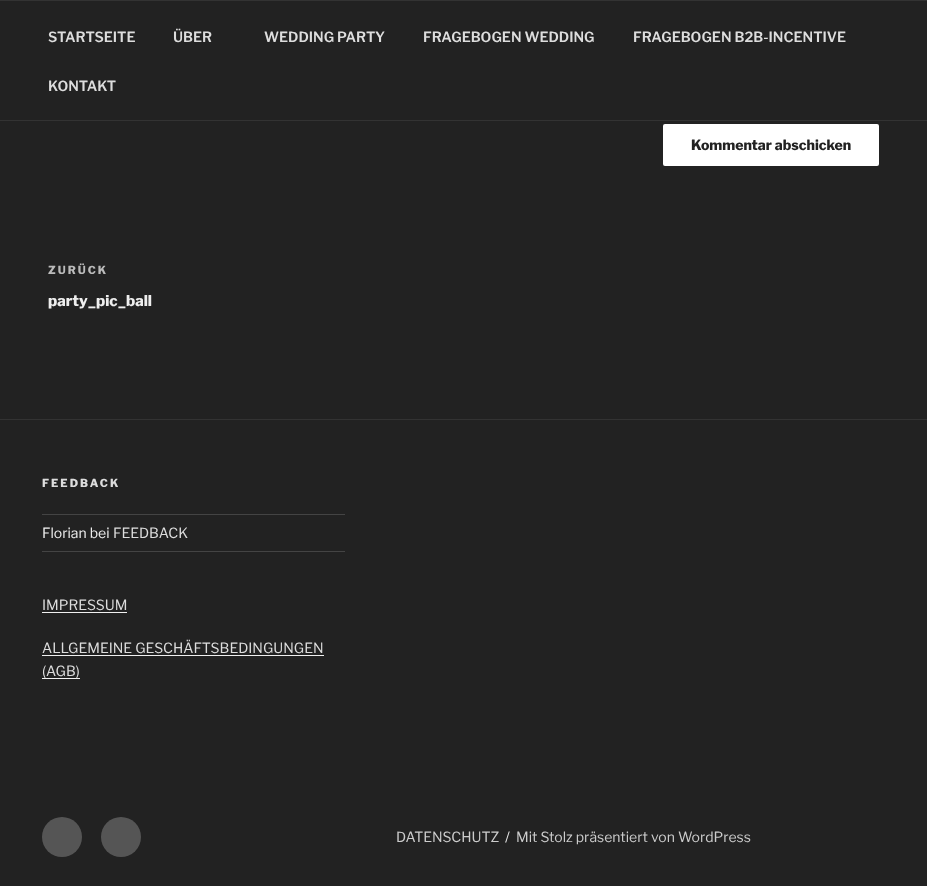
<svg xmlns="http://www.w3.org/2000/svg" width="927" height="886">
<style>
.a{font:100 14px 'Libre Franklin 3';fill:#ddd}
.b{font:100 14px Libre Franklin;fill:#222}
.c{font:100 11px Libre Franklin;letter-spacing:2px;fill:#bbb}
.d{font:100 15px Libre Franklin;fill:#eee}
.e{font:100 11px Libre Franklin;letter-spacing:2px;fill:#ddd}
.f{font:100 14px 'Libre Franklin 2';fill:#eee}
.g{font:100 14px 'Libre Franklin 2';fill:#ddd}
.h{font:100 14px 'Libre Franklin 2';fill:#ccc}
</style>
<rect width="100%" height="100%" fill="#222"/>
<path fill="#333" d="M0 0h927v1H0z"/>
<path fill="#333" d="M0 120h927v1H0z"/>
<rect fill="#fff" x="663" y="124" width="216" height="42" rx="2"/>
<path fill="#333" d="M0 419h927v1H0z"/>
<path fill="#444" d="M42 514h303v1H42z"/>
<path fill="#444" d="M42 551h303v1H42z"/>
<path fill="#f0f0f0" d="M42 612h85v1H42z"/>
<path fill="#f0f0f0" d="M42 655h282v1H42z"/>
<path fill="#f0f0f0" d="M42 678h38v1H42z"/>
<circle fill="#555" cx="62" cy="837" r="20"/>
<circle fill="#555" cx="121" cy="837" r="20"/>
<text class="a" x="48" y="42">STARTSEITE</text>
<text class="a" x="173" y="42">ÜBER</text>
<text class="a" x="264" y="42">WEDDING PARTY</text>
<text class="a" x="423" y="42">FRAGEBOGEN WEDDING</text>
<text class="a" x="633" y="42">FRAGEBOGEN B2B-INCENTIVE</text>
<text class="a" x="48" y="91">KONTAKT</text>
<text class="b" x="691" y="150">Kommentar abschicken</text>
<text class="c" x="48" y="274">ZURÜCK</text>
<text class="d" x="48" y="306">party_pic_ball</text>
<text class="e" x="42" y="487">FEEDBACK</text>
<text class="f" x="42" y="538">Florian bei</text>
<text class="g" x="113" y="538">FEEDBACK</text>
<text class="g" x="42" y="610">IMPRESSUM</text>
<text class="g" x="42" y="653">ALLGEMEINE GESCHÄFTSBEDINGUNGEN</text>
<text class="g" x="42" y="676">(AGB)</text>
<text class="h" x="396" y="842">DATENSCHUTZ</text>
<text class="f" x="505" y="842">/</text>
<text class="h" x="516" y="842">Mit Stolz präsentiert von WordPress</text>
</svg>
